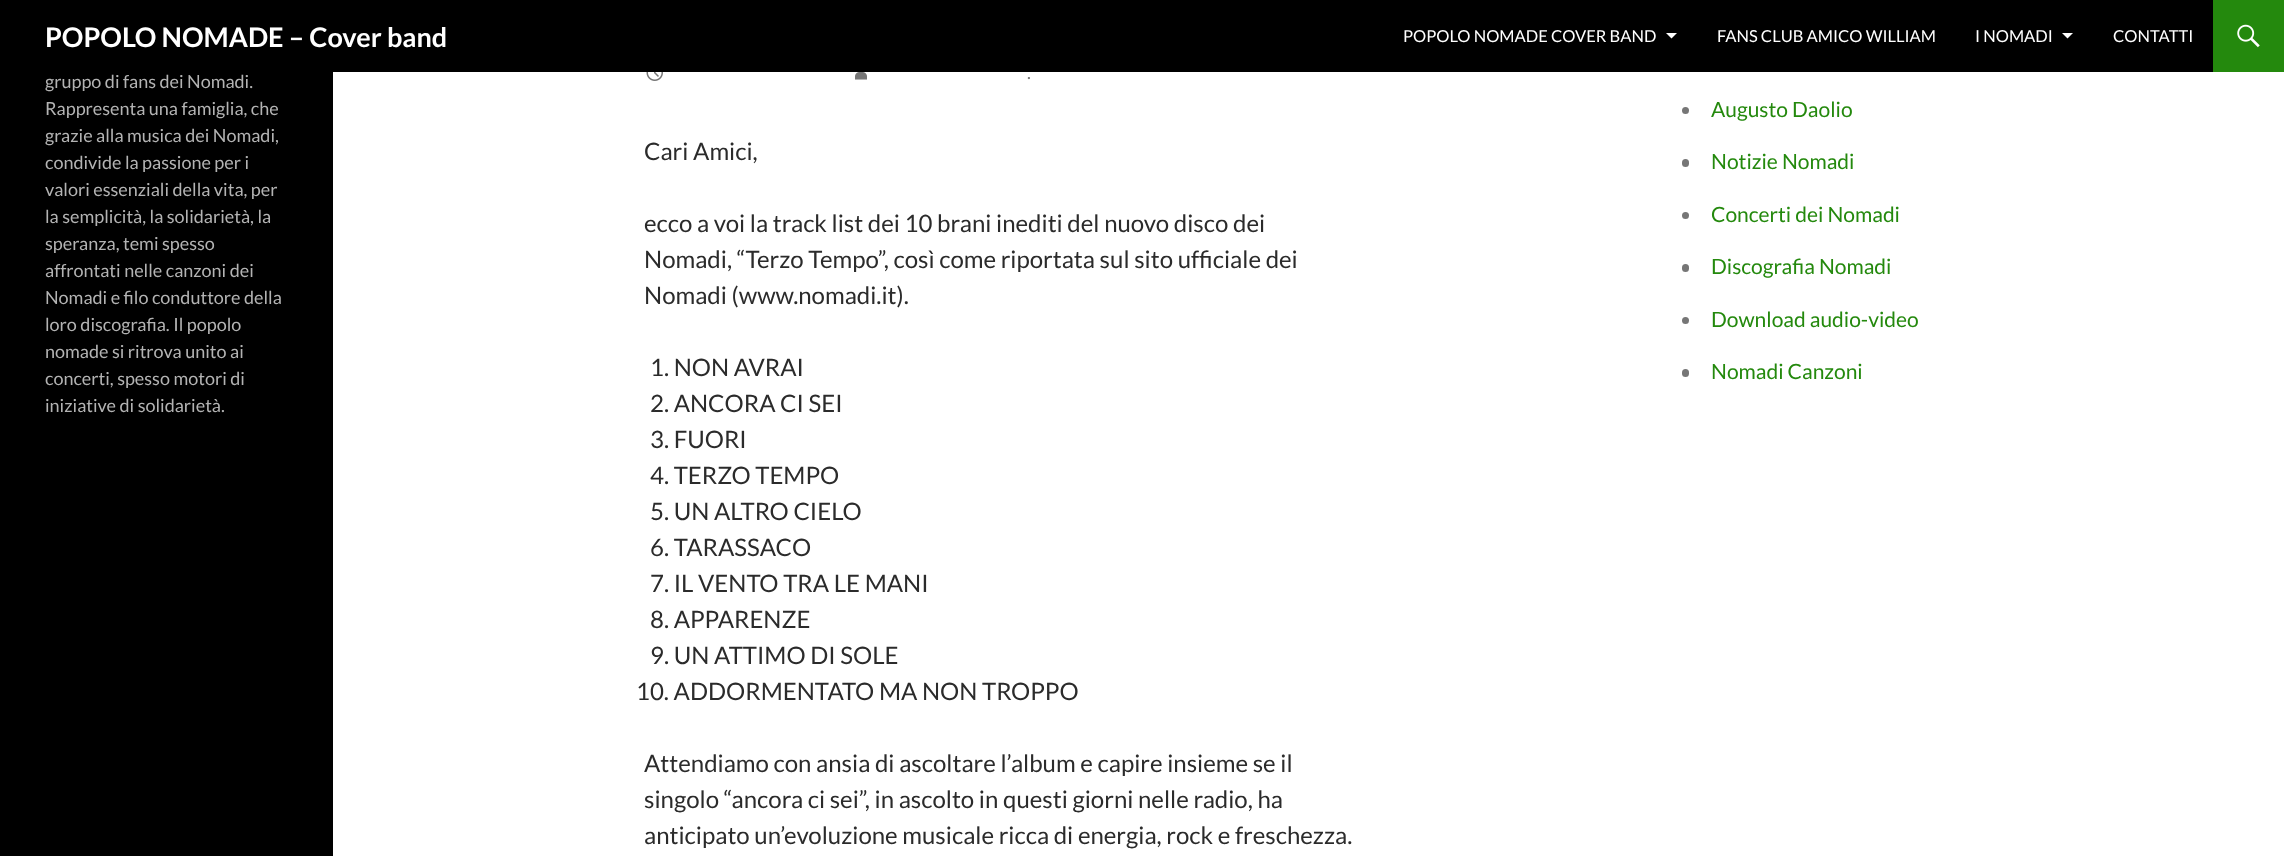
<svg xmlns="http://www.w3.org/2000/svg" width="2284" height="856">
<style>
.a{font:bold 27px Lato;fill:#fff}
.b{font:16.5px Lato;fill:#fff}
.c{font:18px Lato;fill:#b3b3b3}
.d{font:18px Lato;fill:#767676}
.e{font:24px Lato;fill:#2b2b2b}
.f{font:21px Lato;fill:#24890d}
</style>
<rect width="100%" height="100%" fill="#fff"/>
<path fill="#000" d="M0 0h2213v72H0z"/>
<path fill="#fff" d="M1666 33l5.5 5.5l5.5-5.5z"/>
<path fill="#fff" d="M2062 33l5.5 5.5l5.5-5.5z"/>
<path fill="#24890d" d="M2213 0h71v72H2213z"/>
<image href="1.png" x="2237" y="24" width="23" height="24"/>
<path fill="#000" d="M0 72h333v784H0z"/>
<image href="2.png" x="646" y="72" width="17" height="9"/>
<image href="3.png" x="855" y="72" width="12" height="8"/>
<circle fill="#767676" cx="1685.5" cy="110.5" r="3.5"/>
<rect fill="#767676" x="1682" y="159" width="7" height="8" rx="3.5"/>
<circle fill="#767676" cx="1685.5" cy="215.5" r="3.5"/>
<rect fill="#767676" x="1682" y="264" width="7" height="8" rx="3.5"/>
<circle fill="#767676" cx="1685.5" cy="320.5" r="3.5"/>
<rect fill="#767676" x="1682" y="369" width="7" height="8" rx="3.5"/>
<text class="a" x="45" y="47">POPOLO NOMADE – Cover band</text>
<text class="b" x="1403" y="42">POPOLO NOMADE COVER BAND</text>
<text class="b" x="1717" y="42">FANS CLUB AMICO WILLIAM</text>
<text class="b" x="1975" y="42">I NOMADI</text>
<text class="b" x="2113" y="42">CONTATTI</text>
<text class="c" x="45" y="88">gruppo di fans dei Nomadi.</text>
<text class="c" x="45" y="115">Rappresenta una famiglia, che</text>
<text class="c" x="45" y="142">grazie alla musica dei Nomadi,</text>
<text class="c" x="45" y="169">condivide la passione per i</text>
<text class="c" x="45" y="196">valori essenziali della vita, per</text>
<text class="c" x="45" y="223">la semplicità, la solidarietà, la</text>
<text class="c" x="45" y="250">speranza, temi spesso</text>
<text class="c" x="45" y="277">affrontati nelle canzoni dei</text>
<text class="c" x="45" y="304">Nomadi e filo conduttore della</text>
<text class="c" x="45" y="331">loro discografia. Il popolo</text>
<text class="c" x="45" y="358">nomade si ritrova unito ai</text>
<text class="c" x="45" y="385">concerti, spesso motori di</text>
<text class="c" x="45" y="412">iniziative di solidarietà.</text>
<text class="d" x="1027" y="79">.</text>
<text class="e" x="644" y="160">Cari Amici,</text>
<text class="e" x="644" y="232">ecco a voi la track list dei 10 brani inediti del nuovo disco dei</text>
<text class="e" x="644" y="268">Nomadi, “Terzo Tempo”, così come riportata sul sito ufficiale dei</text>
<text class="e" x="644" y="304">Nomadi (www.nomadi.it).</text>
<text class="e" x="650" y="376">1. NON AVRAI</text>
<text class="e" x="650" y="412">2. ANCORA CI SEI</text>
<text class="e" x="650" y="448">3. FUORI</text>
<text class="e" x="650" y="484">4. TERZO TEMPO</text>
<text class="e" x="650" y="520">5. UN ALTRO CIELO</text>
<text class="e" x="650" y="556">6. TARASSACO</text>
<text class="e" x="650" y="592">7. IL VENTO TRA LE MANI</text>
<text class="e" x="650" y="628">8. APPARENZE</text>
<text class="e" x="650" y="664">9. UN ATTIMO DI SOLE</text>
<text class="e" x="636" y="700">10. ADDORMENTATO MA NON TROPPO</text>
<text class="e" x="644" y="772">Attendiamo con ansia di ascoltare l’album e capire insieme se il</text>
<text class="e" x="644" y="808">singolo “ancora ci sei”, in ascolto in questi giorni nelle radio, ha</text>
<text class="e" x="644" y="844">anticipato un’evoluzione musicale ricca di energia, rock e freschezza.</text>
<text class="f" x="1711" y="117">Augusto Daolio</text>
<text class="f" x="1711" y="169">Notizie Nomadi</text>
<text class="f" x="1711" y="222">Concerti dei Nomadi</text>
<text class="f" x="1711" y="274">Discografia Nomadi</text>
<text class="f" x="1711" y="327">Download audio-video</text>
<text class="f" x="1711" y="379">Nomadi Canzoni</text>
</svg>
